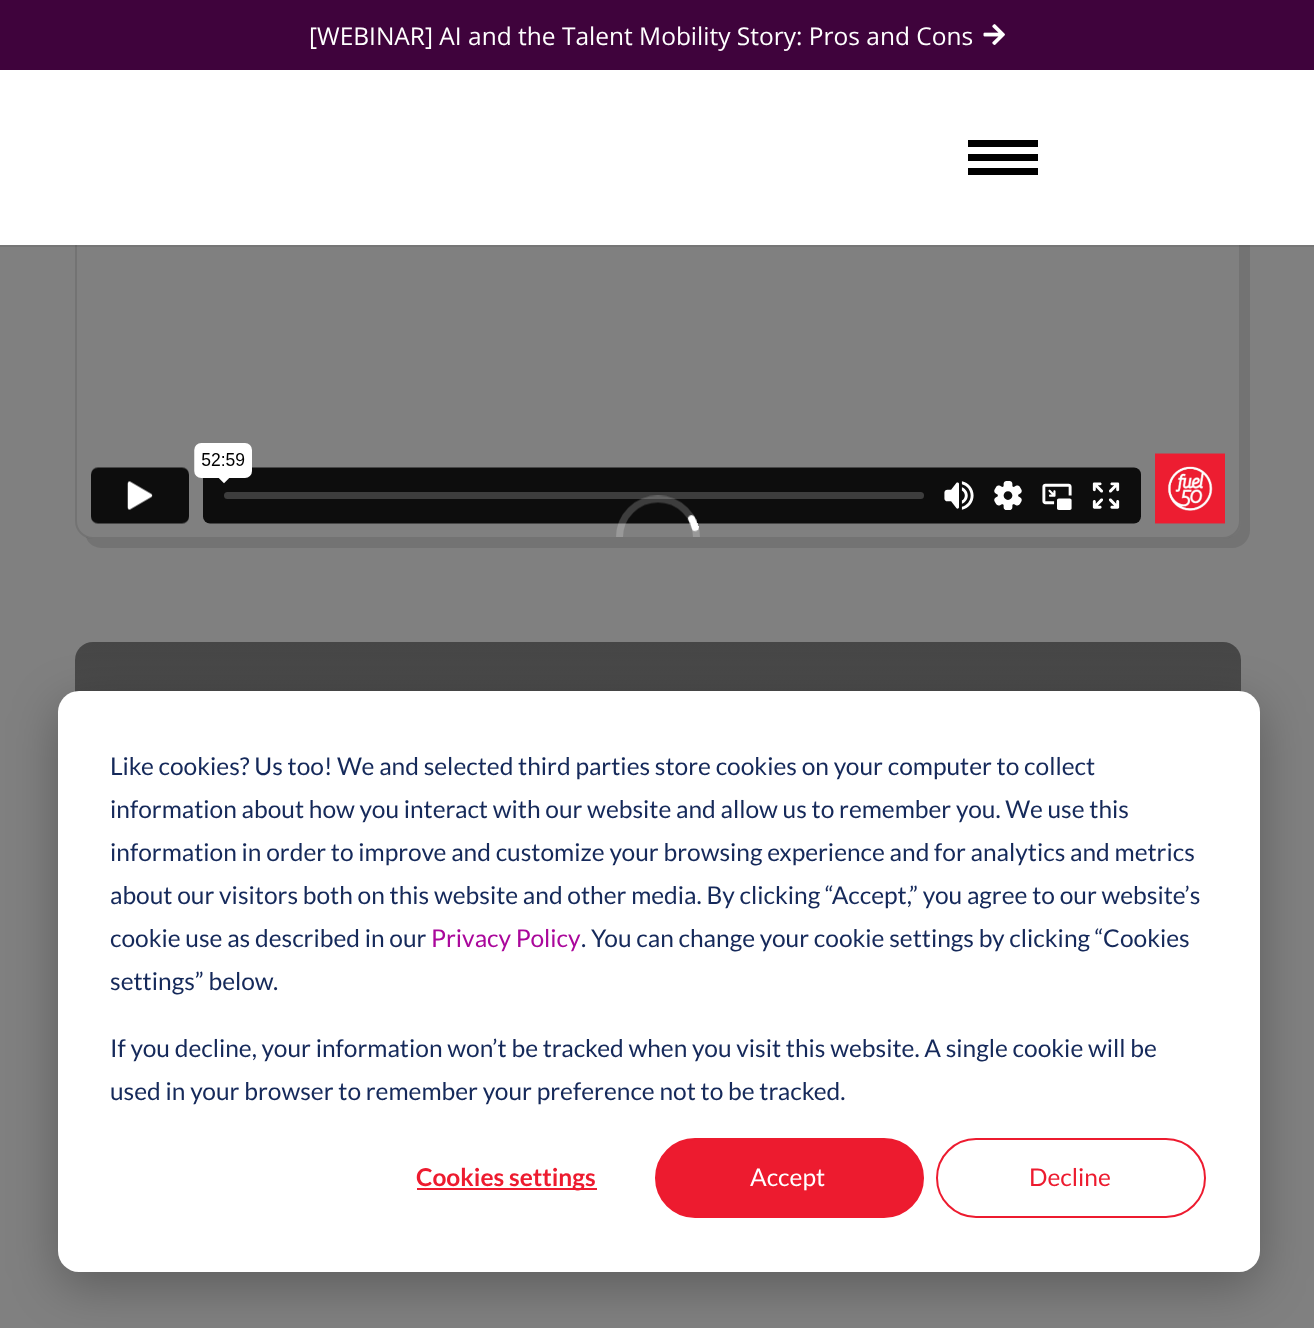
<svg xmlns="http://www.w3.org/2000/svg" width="1314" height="1328">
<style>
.a{font:24.5px Open Sans;fill:#fff}
.b{font:24.5px Lato;fill:#15295a}
.c{font:24.5px Lato;fill:#aa079b}
.d{font:bold 24.5px Lato;fill:#ed1b2f}
.e{font:24.5px Lato;fill:#fff}
.f{font:24.5px Lato;fill:#ed1b2f}
</style>
<defs>
<linearGradient id="g1" gradientUnits="userSpaceOnUse" x1="658" y1="1246" x2="658" y2="642"><stop offset="0" stop-color="#808080"/><stop offset="1" stop-color="#464646"/></linearGradient>
</defs>
<rect width="100%" height="100%" fill="#808080"/>
<path fill="#737373" d="M86 537c2 7 9 11 16 11h1130c10 0 18-8 18-18v-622c0-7-4-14-11-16c1 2 2 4 2 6v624c0 9-8 17-18 17h-1130c-3 0-5-1-7-2z"/>
<rect fill="none" stroke="#0000001a" stroke-width="2" x="76" y="-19" width="1164" height="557" rx="17"/>
<image href="1.png" x="91" y="443" width="1134" height="94"/>
<rect fill="url(#g1)" x="75" y="642" width="1166" height="604" rx="18"/>
<path fill="#3f033c" d="M0 0h1314v70H0z"/>
<image href="2.png" x="983" y="24" width="22" height="21"/>
<path fill="#00000014" d="M0 245h1314v2H0z"/>
<path fill="#fff" d="M0 70h1314v175H0z"/>
<path fill="#000" d="M968 154h70v7H968z"/>
<path fill="#000" d="M968 140h70v7H968z"/>
<path fill="#000" d="M968 168h70v7H968z"/>
<rect fill="#00000047" filter="blur(24.5px)" x="58" y="705" width="1202" height="581" rx="21"/>
<rect fill="#fff" x="58" y="691" width="1202" height="581" rx="21"/>
<path fill="#ed1b2f" d="M417 1188h180v2H417z"/>
<rect fill="#ed1b2f" stroke="#ed1b2f" stroke-width="2" x="656" y="1139" width="267" height="78" rx="39"/>
<rect fill="none" stroke="#ed1b2f" stroke-width="2" x="937" y="1139" width="268" height="78" rx="39"/>
<text class="a" x="309" y="45">[WEBINAR] AI and the Talent Mobility Story: Pros and Cons</text>
<text class="b" x="110" y="775">Like cookies? Us too! We and selected third parties store cookies on your computer to collect</text>
<text class="b" x="110" y="818">information about how you interact with our website and allow us to remember you. We use this</text>
<text class="b" x="110" y="861">information in order to improve and customize your browsing experience and for analytics and metrics</text>
<text class="b" x="110" y="904">about our visitors both on this website and other media. By clicking “Accept,” you agree to our website’s</text>
<text class="b" x="110" y="947">cookie use as described in our</text>
<text class="c" x="431" y="947">Privacy Policy</text>
<text class="b" x="581" y="947">. You can change your cookie settings by clicking “Cookies</text>
<text class="b" x="110" y="990">settings” below.</text>
<text class="b" x="110" y="1057">If you decline, your information won’t be tracked when you visit this website. A single cookie will be</text>
<text class="b" x="110" y="1100">used in your browser to remember your preference not to be tracked.</text>
<text class="d" x="416" y="1186">Cookies settings</text>
<text class="e" x="750" y="1186">Accept</text>
<text class="f" x="1029" y="1186">Decline</text>
</svg>
